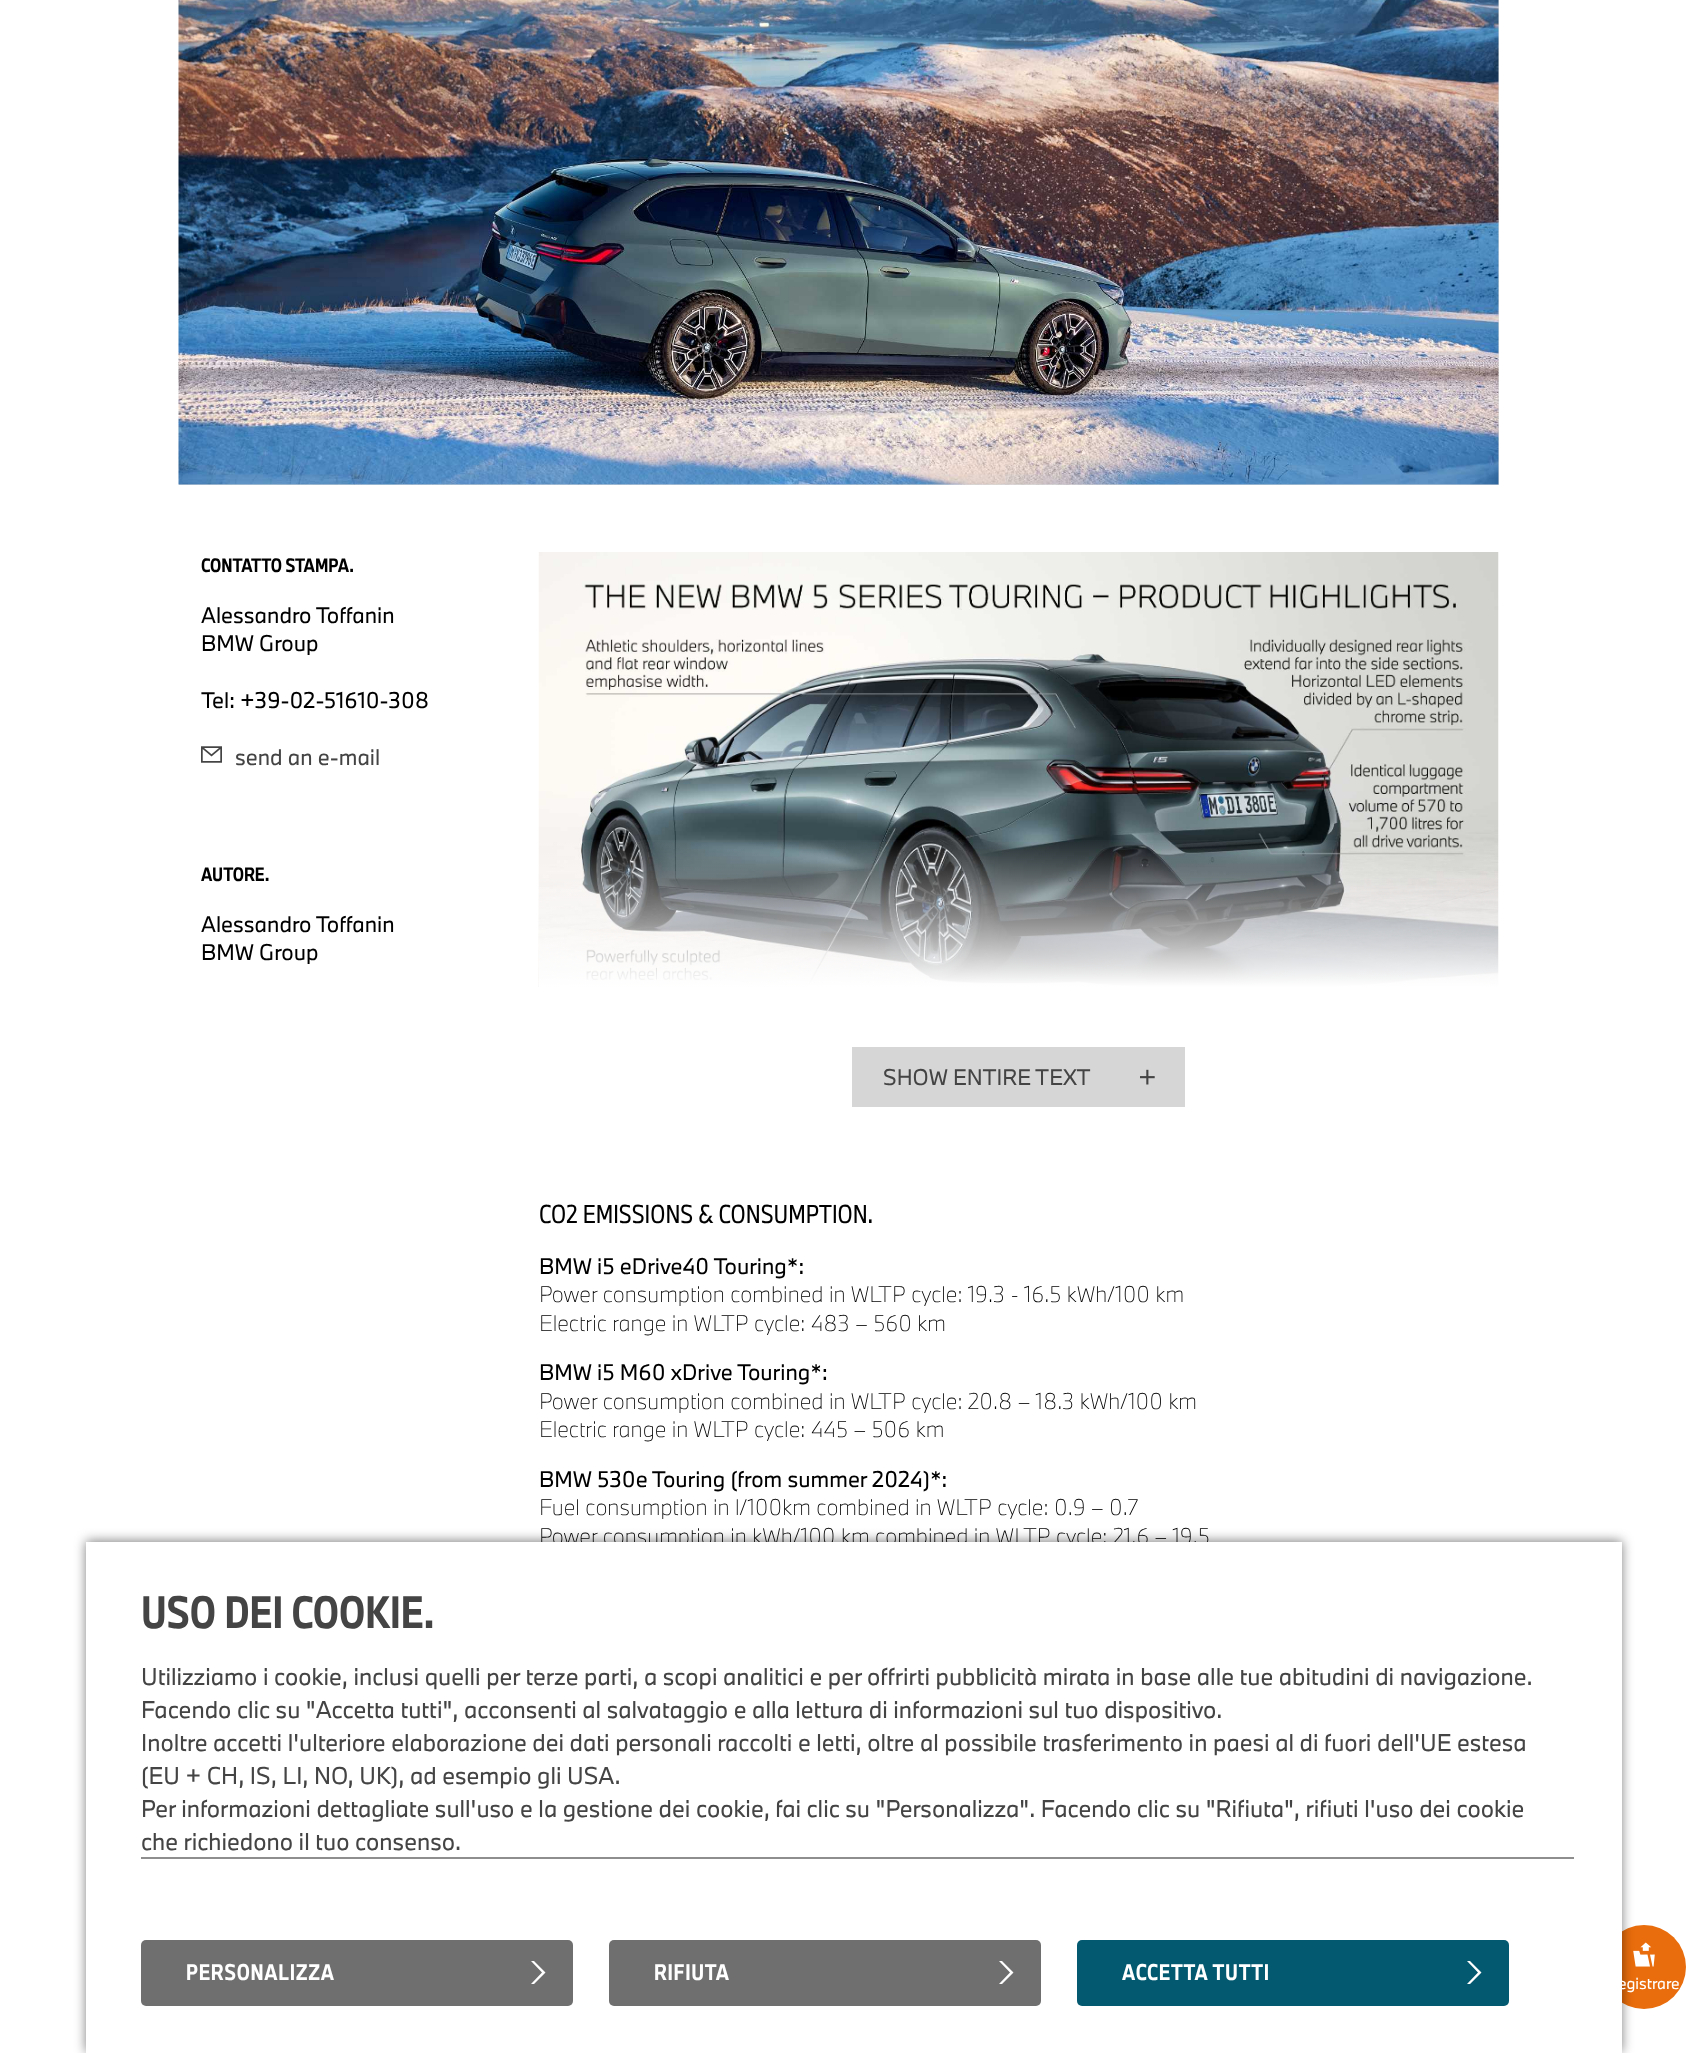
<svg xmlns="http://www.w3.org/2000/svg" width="1706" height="2053">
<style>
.a{font:bold 18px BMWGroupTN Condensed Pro;fill:#000}
.b{font:21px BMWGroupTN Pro;fill:#000}
.c{font:21px BMWGroupTN Pro;fill:#444}
.d{font:24px BMWGroupTN Condensed Pro;fill:#000}
.e{font:100 21px BMWGroupTN Pro;fill:#000}
.f{font:bold 42px BMWGroupTN Condensed Pro;fill:#444}
.g{font:22.5px BMWGroupTN Pro;fill:#444}
.h{font:bold 21px BMWGroupTN Condensed Pro;letter-spacing:0.75px;fill:#fff}
.i{font:15px BMWGroupTN Pro;fill:#fff}
</style>
<defs>
<linearGradient id="g1" gradientUnits="userSpaceOnUse" x1="1019" y1="837" x2="1019" y2="987"><stop offset="0" stop-color="#fff" stop-opacity="0"/><stop offset="1" stop-color="#fff"/></linearGradient>
</defs>
<rect width="100%" height="100%" fill="#fff"/>
<path fill="#ddd" d="M179 0h1320v485H179z"/>
<image href="1.png" x="178" y="0" width="1321" height="485"/>
<image href="2.png" x="201" y="746" width="21" height="17"/>
<image href="3.png" x="538" y="552" width="961" height="435"/>
<path fill="url(#g1)" d="M539 840h960v147H539z"/>
<path fill="#d6d6d6" d="M852 1047h333v60H852z"/>
<image href="4.png" x="1140" y="1069" width="15" height="16"/>
<circle fill="#e96d0c" cx="1644" cy="1967" r="42"/>
<image href="5.png" x="1633" y="1942" width="22" height="25"/>
<path fill="#00000080" filter="blur(6px)" d="M86 1541h1536v511H86z"/>
<text class="a" x="201" y="572">CONTATTO STAMPA.</text>
<text class="b" x="201" y="623">Alessandro Toffanin</text>
<text class="b" x="201" y="651">BMW Group</text>
<text class="b" x="201" y="708">Tel: +39-02-51610-308</text>
<text class="c" x="235" y="765">send an e-mail</text>
<text class="a" x="201" y="881">AUTORE.</text>
<text class="b" x="201" y="932">Alessandro Toffanin</text>
<text class="b" x="201" y="960">BMW Group</text>
<text class="c" x="883" y="1085">SHOW ENTIRE TEXT</text>
<text class="d" x="539" y="1223">CO2 EMISSIONS &amp; CONSUMPTION.</text>
<text class="b" x="539" y="1274">BMW i5 eDrive40 Touring*:</text>
<text class="e" x="539" y="1302">Power consumption combined in WLTP cycle: 19.3 - 16.5 kWh/100 km</text>
<text class="e" x="539" y="1331">Electric range in WLTP cycle: 483 – 560 km</text>
<text class="b" x="539" y="1380">BMW i5 M60 xDrive Touring*:</text>
<text class="e" x="539" y="1409">Power consumption combined in WLTP cycle: 20.8 – 18.3 kWh/100 km</text>
<text class="e" x="539" y="1437">Electric range in WLTP cycle: 445 – 506 km</text>
<text class="b" x="539" y="1487">BMW 530e Touring (from summer 2024)*:</text>
<text class="e" x="539" y="1515">Fuel consumption in l/100km combined in WLTP cycle: 0.9 – 0.7</text>
<text class="e" x="539" y="1544">Power consumption in kWh/100 km combined in WLTP cycle: 21.6 – 19.5</text>
<path fill="#fff" d="M86 1542h1536v511H86z"/>
<text class="f" x="141" y="1628">USO DEI COOKIE.</text>
<text class="g" x="141" y="1685">Utilizziamo i cookie, inclusi quelli per terze parti, a scopi analitici e per offrirti pubblicità mirata in base alle tue abitudini di navigazione.</text>
<text class="g" x="141" y="1718">Facendo clic su "Accetta tutti", acconsenti al salvataggio e alla lettura di informazioni sul tuo dispositivo.</text>
<text class="g" x="141" y="1751">Inoltre accetti l'ulteriore elaborazione dei dati personali raccolti e letti, oltre al possibile trasferimento in paesi al di fuori dell'UE estesa</text>
<text class="g" x="141" y="1784">(EU + CH, IS, LI, NO, UK), ad esempio gli USA.</text>
<text class="g" x="141" y="1817">Per informazioni dettagliate sull'uso e la gestione dei cookie, fai clic su "Personalizza". Facendo clic su "Rifiuta", rifiuti l'uso dei cookie</text>
<text class="g" x="141" y="1850">che richiedono il tuo consenso.</text>
<path fill="#8e8e8e" d="M141 1857h1433v2H141z"/>
<rect fill="#6f6f6f" x="141" y="1940" width="432" height="66" rx="5"/>
<path fill="#fff" d="M531 1984l11-11.5l-11-11.5h3l11.5 11.5l-11.5 11.5z"/>
<text class="h" x="186" y="1980">PERSONALIZZA</text>
<rect fill="#6f6f6f" x="609" y="1940" width="432" height="66" rx="5"/>
<path fill="#fff" d="M999 1984l11-11.5l-11-11.5h3l11.5 11.5l-11.5 11.5z"/>
<text class="h" x="654" y="1980">RIFIUTA</text>
<rect fill="#035970" x="1077" y="1940" width="432" height="66" rx="5"/>
<path fill="#fff" d="M1467 1984l11-11.5l-11-11.5h3l11.5 11.5l-11.5 11.5z"/>
<text class="h" x="1122" y="1980">ACCETTA TUTTI</text>
<text class="i" x="1618" y="1989">egistrare</text>
</svg>
